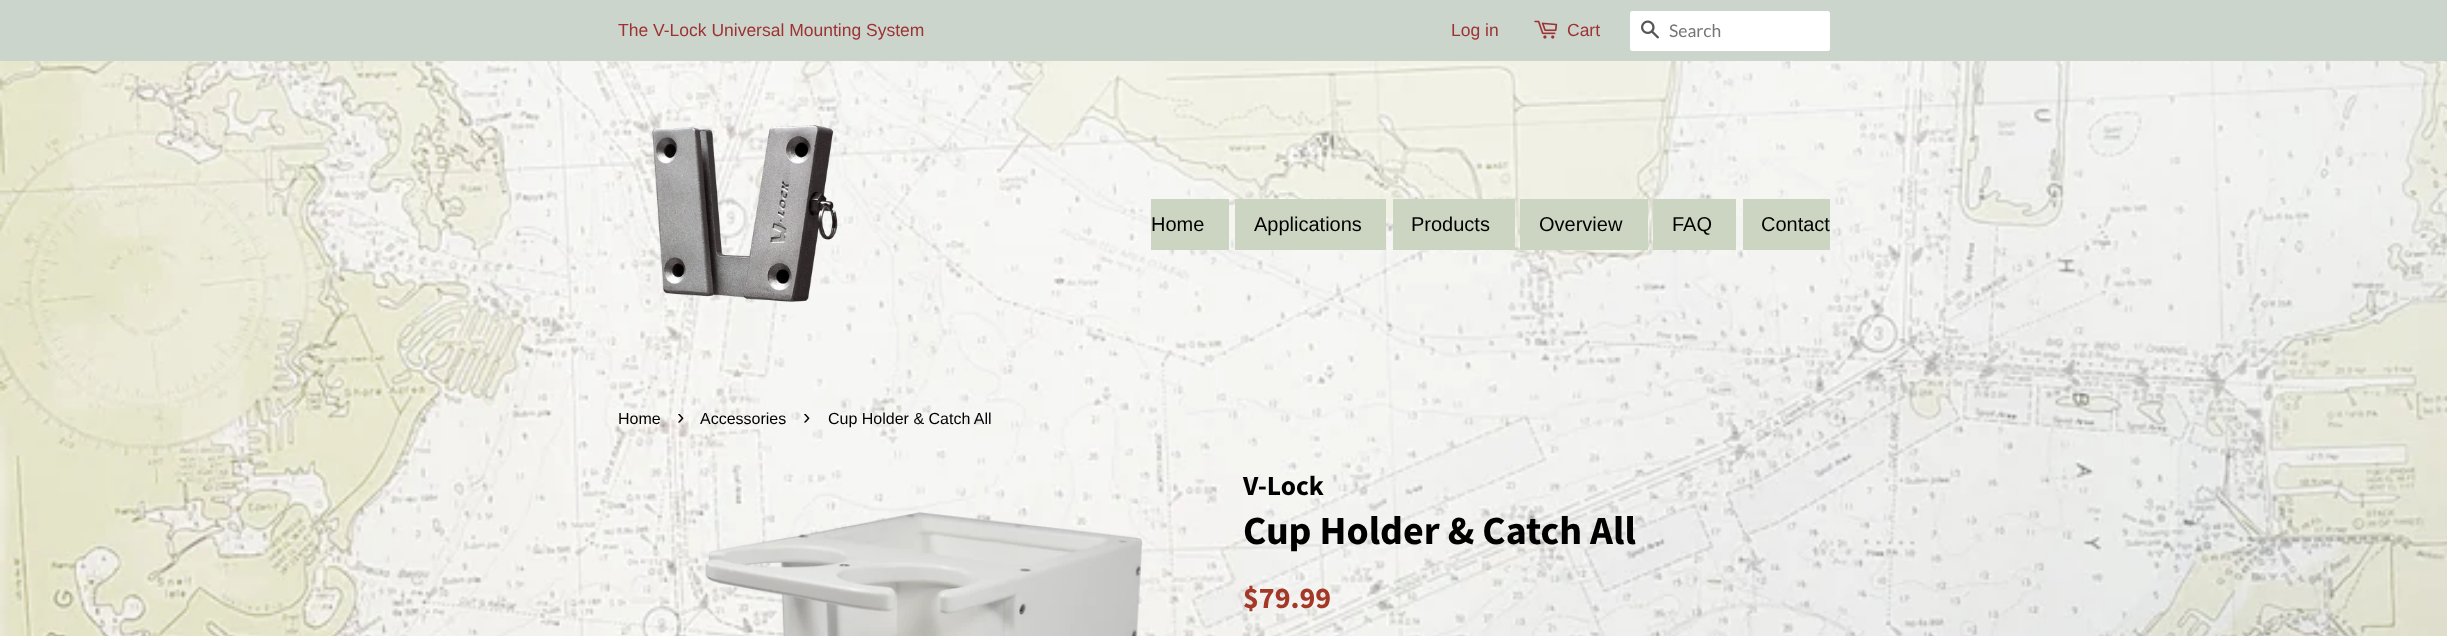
<svg xmlns="http://www.w3.org/2000/svg" width="2447" height="636">
<style>
.a{font:17.5px Liberation Sans;fill:#9d3232}
.b{font:17.5px Lato;fill:#757575}
.c{font:20px Liberation Sans;fill:#000}
.d{font:16px Liberation Sans;fill:#000}
.e{font:22px Liberation Sans;fill:#000}
.f{font:bold 27.5px Source Sans Pro;fill:#000}
.g{font:bold 40px Source Sans Pro;fill:#000}
.h{font:bold 30px Source Sans Pro;fill:#a33827}
</style>
<rect width="100%" height="100%" fill="#fff"/>
<image href="1.png" x="0" y="61" width="2447" height="575"/>
<path fill="#cbd5cc" d="M0 0h2447v61H0z"/>
<image href="2.png" x="1534" y="20" width="24" height="19"/>
<rect fill="#fff" x="1630" y="11" width="200" height="40" rx="2.5"/>
<image href="3.png" x="1641" y="20" width="18" height="19"/>
<image href="4.png" x="652" y="125" width="186" height="177"/>
<path fill="#ccd5c2" d="M1151 199h78v51H1151z"/>
<path fill="#ccd5c2" d="M1235 199h151v51H1235z"/>
<path fill="#ccd5c2" d="M1393 199h122v51H1393z"/>
<path fill="#ccd5c2" d="M1520 199h128v51H1520z"/>
<path fill="#ccd5c2" d="M1653 199h83v51H1653z"/>
<path fill="#ccd5c2" d="M1743 199h87v51H1743z"/>
<image href="5.png" x="705" y="512" width="438" height="124"/>
<text class="a" x="618" y="36">The V-Lock Universal Mounting System</text>
<text class="a" x="1451" y="36">Log in</text>
<text class="a" x="1567" y="36">Cart</text>
<text class="b" x="1669" y="37">Search</text>
<text class="c" x="1151" y="231">Home</text>
<text class="c" x="1254" y="231">Applications</text>
<text class="c" x="1411" y="231">Products</text>
<text class="c" x="1539" y="231">Overview</text>
<text class="c" x="1672" y="231">FAQ</text>
<text class="c" x="1761" y="231">Contact</text>
<text class="d" x="618" y="424">Home</text>
<text class="e" x="677" y="424">›</text>
<text class="d" x="700" y="424">Accessories</text>
<text class="e" x="803" y="424">›</text>
<text class="d" x="828" y="424">Cup Holder &amp; Catch All</text>
<text class="f" x="1243" y="495">V-Lock</text>
<text class="g" x="1243" y="544">Cup Holder &amp; Catch All</text>
<text class="h" x="1243" y="608">$79.99</text>
</svg>
